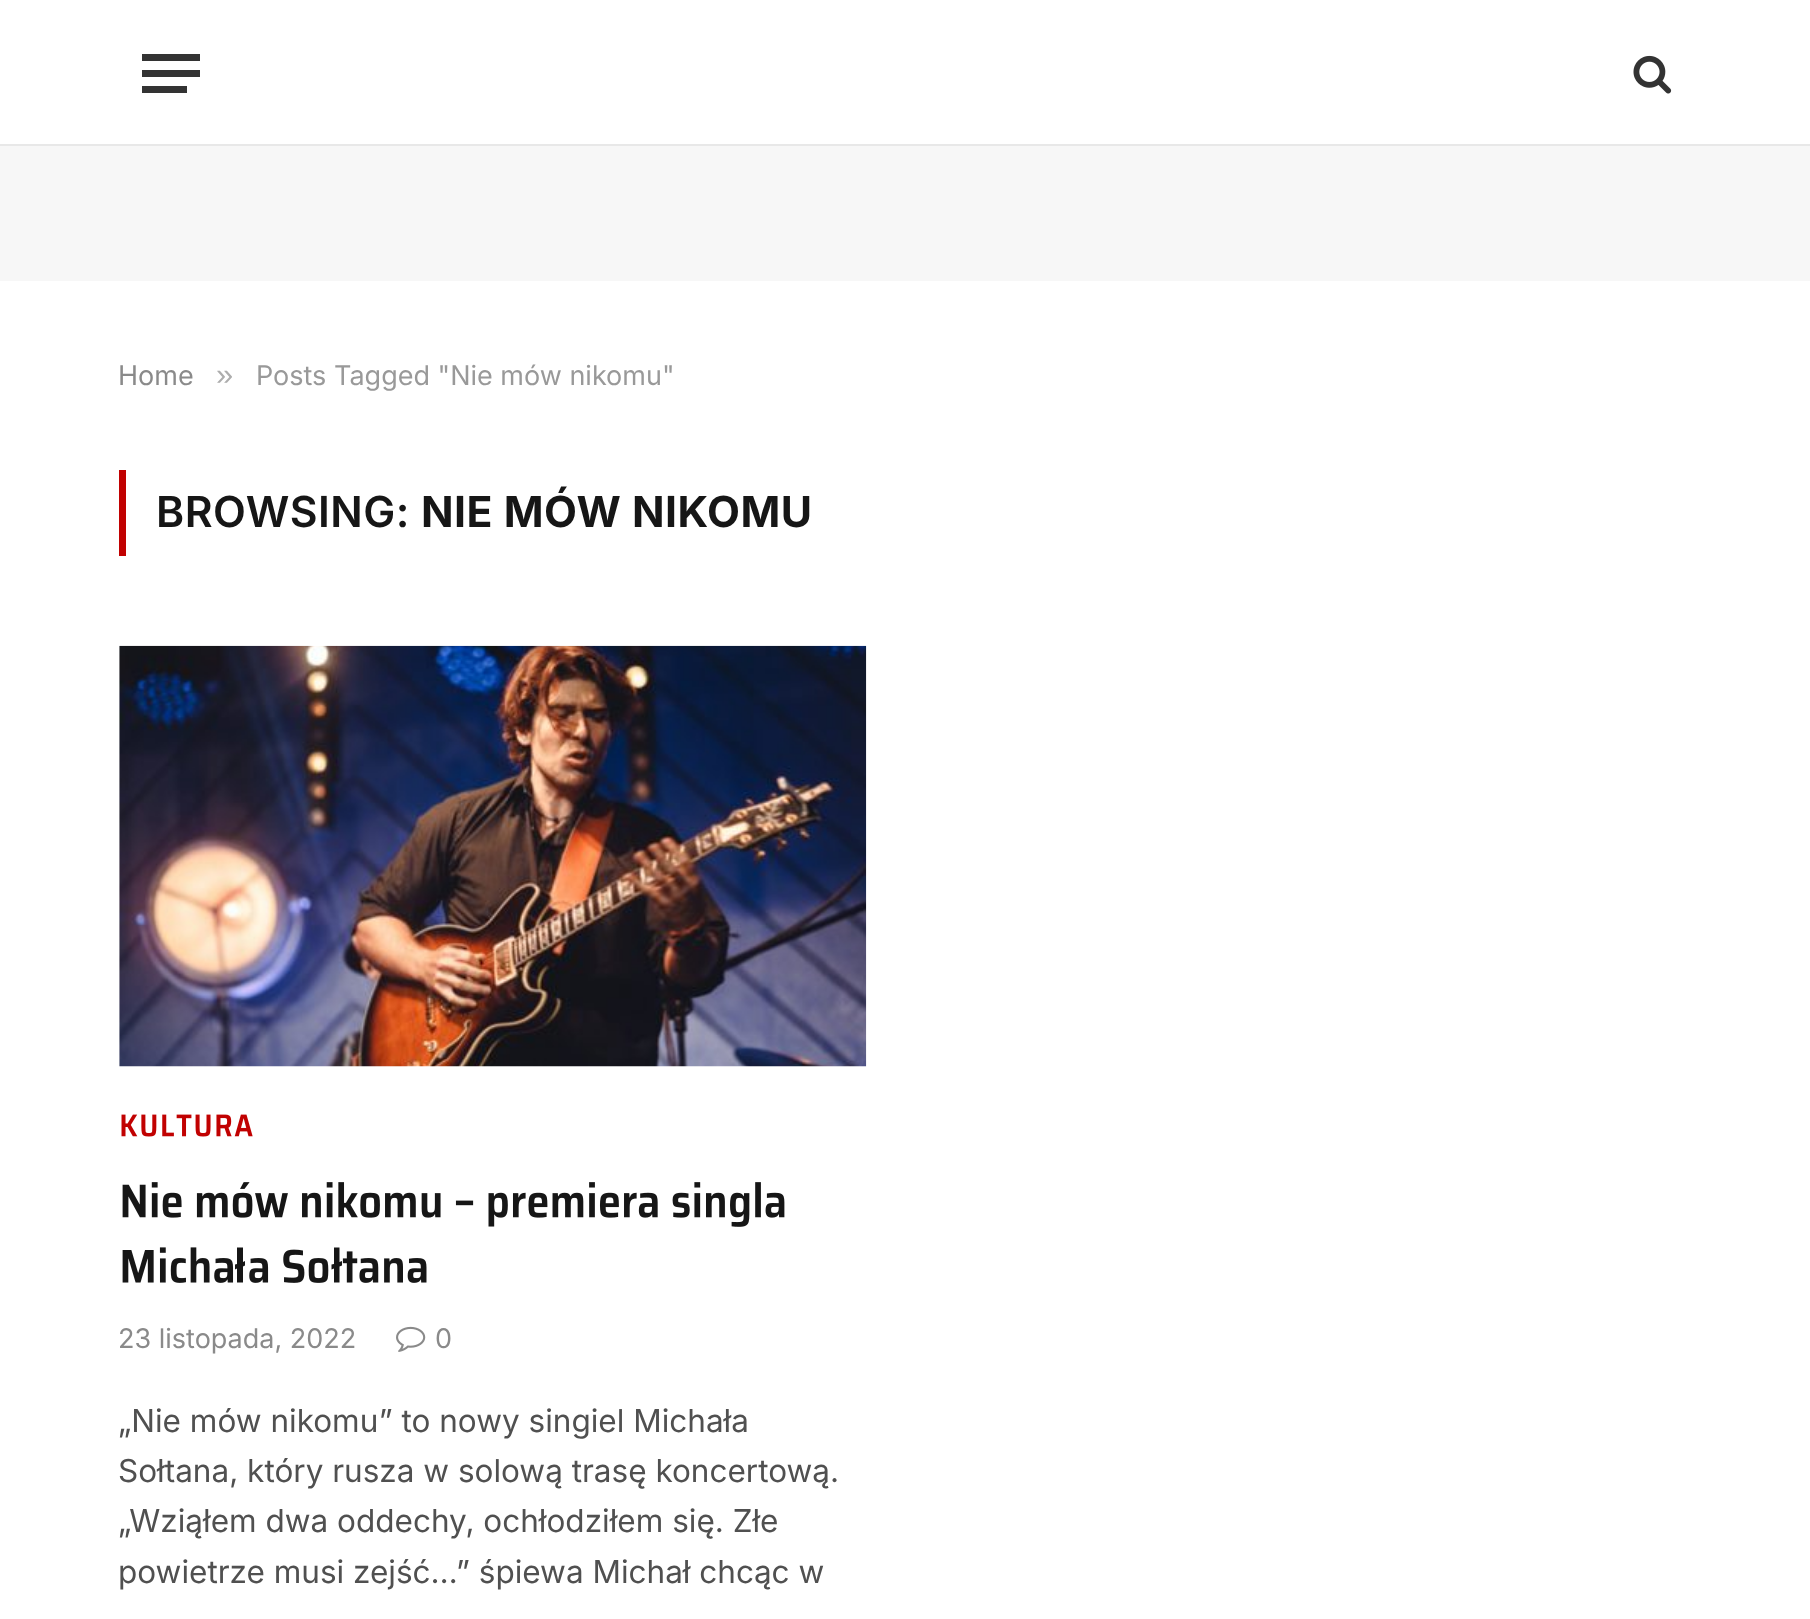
<svg xmlns="http://www.w3.org/2000/svg" width="1810" height="1619">
<style>
.a{font:27px Inter;fill:#8a8a8a}
.b{font:31px Liberation Sans;fill:#adadad}
.c{font:27px Inter;fill:#999}
.d{font:600 42.75px Inter;letter-spacing:0.5px;fill:#161616}
.e{font:bold 42.75px Inter;letter-spacing:0.5px;fill:#161616}
.f{font:31.5px Inter;fill:#505050}
</style>
<rect width="100%" height="100%" fill="#fff"/>
<path fill="#e8e8e8" d="M0 144h1810v2H0z"/>
<path fill="#333" d="M142 86h45v7H142z"/>
<path fill="#333" d="M142 54h58v7H142z"/>
<path fill="#333" d="M142 70h58v7H142z"/>
<image href="1.png" x="1633" y="55" width="39" height="39"/>
<path fill="#f7f7f7" d="M0 146h1810v135H0z"/>
<path fill="#c10101" d="M119 470h7v86H119z"/>
<image href="2.png" x="119" y="645" width="748" height="422"/>
<image href="3.png" x="121" y="1114" width="132" height="23"/>
<image href="4.png" x="122" y="1182" width="663" height="45"/>
<image href="5.png" x="122" y="1247" width="112" height="36"/>
<path fill="#161616" d="M237 1282.5v-14l-2 1v-5l2-.5v-16.5h6v14.5l2-1v4.5l-2 1v16z"/>
<image href="6.png" x="249" y="1249" width="80" height="34"/>
<path fill="#161616" d="M334 1282.5v-14l-2.5 1v-5l2.5-.5v-16.5h5.5v14.5l2.5-1v4.5l-2.5 1v16z"/>
<image href="7.png" x="342" y="1251" width="85" height="32"/>
<image href="8.png" x="396" y="1326" width="30" height="26"/>
<text class="a" x="118" y="385">Home</text>
<text class="b" x="216" y="385">»</text>
<text class="c" x="256" y="385">Posts Tagged "Nie mów nikomu"</text>
<text class="d" x="156" y="527">BROWSING:</text>
<text class="e" x="421" y="527">NIE MÓW NIKOMU</text>
<text class="a" x="118" y="1348">23 listopada, 2022</text>
<text class="a" x="435" y="1348">0</text>
<text class="f" x="118" y="1432">„Nie mów nikomu” to nowy singiel Michała</text>
<text class="f" x="118" y="1482">Sołtana, który rusza w solową trasę koncertową.</text>
<text class="f" x="118" y="1532">„Wziąłem dwa oddechy, ochłodziłem się. Złe</text>
<text class="f" x="118" y="1583">powietrze musi zejść…” śpiewa Michał chcąc w</text>
</svg>
